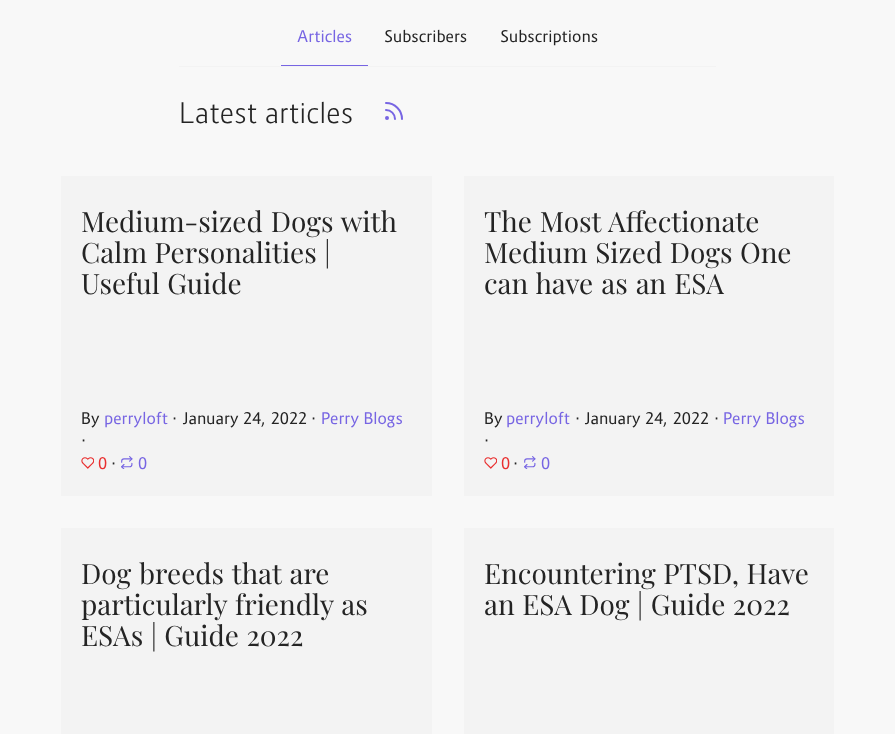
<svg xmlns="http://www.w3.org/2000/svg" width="895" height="734">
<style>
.a{font:16px 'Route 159';fill:#7765e3}
.b{font:16px 'Route 159';fill:#242424}
.c{font:300 28px 'Route 159';fill:#242424}
.d{font:28px Playfair Display;fill:#242424}
.e{font:16px DejaVu Sans;fill:#242424}
.f{font:16px 'Route 159';fill:#e92f2f}
</style>
<rect width="100%" height="100%" fill="#f8f8f8"/>
<path fill="#f3f3f3" d="M179 66h537v1H179z"/>
<path fill="#7765e3" d="M281 65h87v1H281z"/>
<image href="1.png" x="385" y="102" width="18" height="18"/>
<path fill="#f3f3f3" d="M61 176h371v320H61z"/>
<image href="2.png" x="81" y="457" width="13" height="12"/>
<image href="3.png" x="121" y="456" width="12" height="13"/>
<path fill="#f3f3f3" d="M464 176h370v320H464z"/>
<image href="2.png" x="484" y="457" width="13" height="12"/>
<image href="3.png" x="524" y="456" width="12" height="13"/>
<path fill="#f3f3f3" d="M61 528h371v206H61z"/>
<path fill="#f3f3f3" d="M464 528h370v206H464z"/>
<text class="a" x="297" y="42">Articles</text>
<text class="b" x="384" y="42">Subscribers</text>
<text class="b" x="500" y="42">Subscriptions</text>
<text class="c" x="179" y="123" word-spacing="1">Latest articles</text>
<text class="d" x="81" y="232" word-spacing="1">Medium-sized Dogs with</text>
<text class="d" x="81" y="263" word-spacing="0.5">Calm Personalities |</text>
<text class="d" x="81" y="294" word-spacing="0.5">Useful Guide</text>
<text class="b" x="81" y="424">By</text>
<text class="a" x="104" y="424">perryloft</text>
<text class="e" x="172" y="424">⋅</text>
<text class="b" x="182" y="424" word-spacing="1">January 24, 2022</text>
<text class="e" x="311" y="424">⋅</text>
<text class="a" x="321" y="424" word-spacing="1">Perry Blogs</text>
<text class="e" x="81" y="446">⋅</text>
<text class="f" x="98" y="469">0</text>
<text class="e" x="111" y="469">⋅</text>
<text class="a" x="138" y="469">0</text>
<text class="d" x="484" y="232" word-spacing="1">The Most Affectionate</text>
<text class="d" x="484" y="263" word-spacing="0.5">Medium Sized Dogs One</text>
<text class="d" x="484" y="294" word-spacing="1">can have as an ESA</text>
<text class="b" x="484" y="424">By</text>
<text class="a" x="506" y="424">perryloft</text>
<text class="e" x="575" y="424">⋅</text>
<text class="b" x="584" y="424" word-spacing="1">January 24, 2022</text>
<text class="e" x="714" y="424">⋅</text>
<text class="a" x="723" y="424" word-spacing="1">Perry Blogs</text>
<text class="e" x="484" y="446">⋅</text>
<text class="f" x="501" y="469">0</text>
<text class="e" x="513" y="469">⋅</text>
<text class="a" x="541" y="469">0</text>
<text class="d" x="81" y="584" word-spacing="1">Dog breeds that are</text>
<text class="d" x="81" y="615" word-spacing="1">particularly friendly as</text>
<text class="d" x="81" y="646" word-spacing="0.5">ESAs | Guide 2022</text>
<text class="d" x="484" y="584" word-spacing="0.5">Encountering PTSD, Have</text>
<text class="d" x="484" y="615" word-spacing="0.5">an ESA Dog | Guide 2022</text>
</svg>
